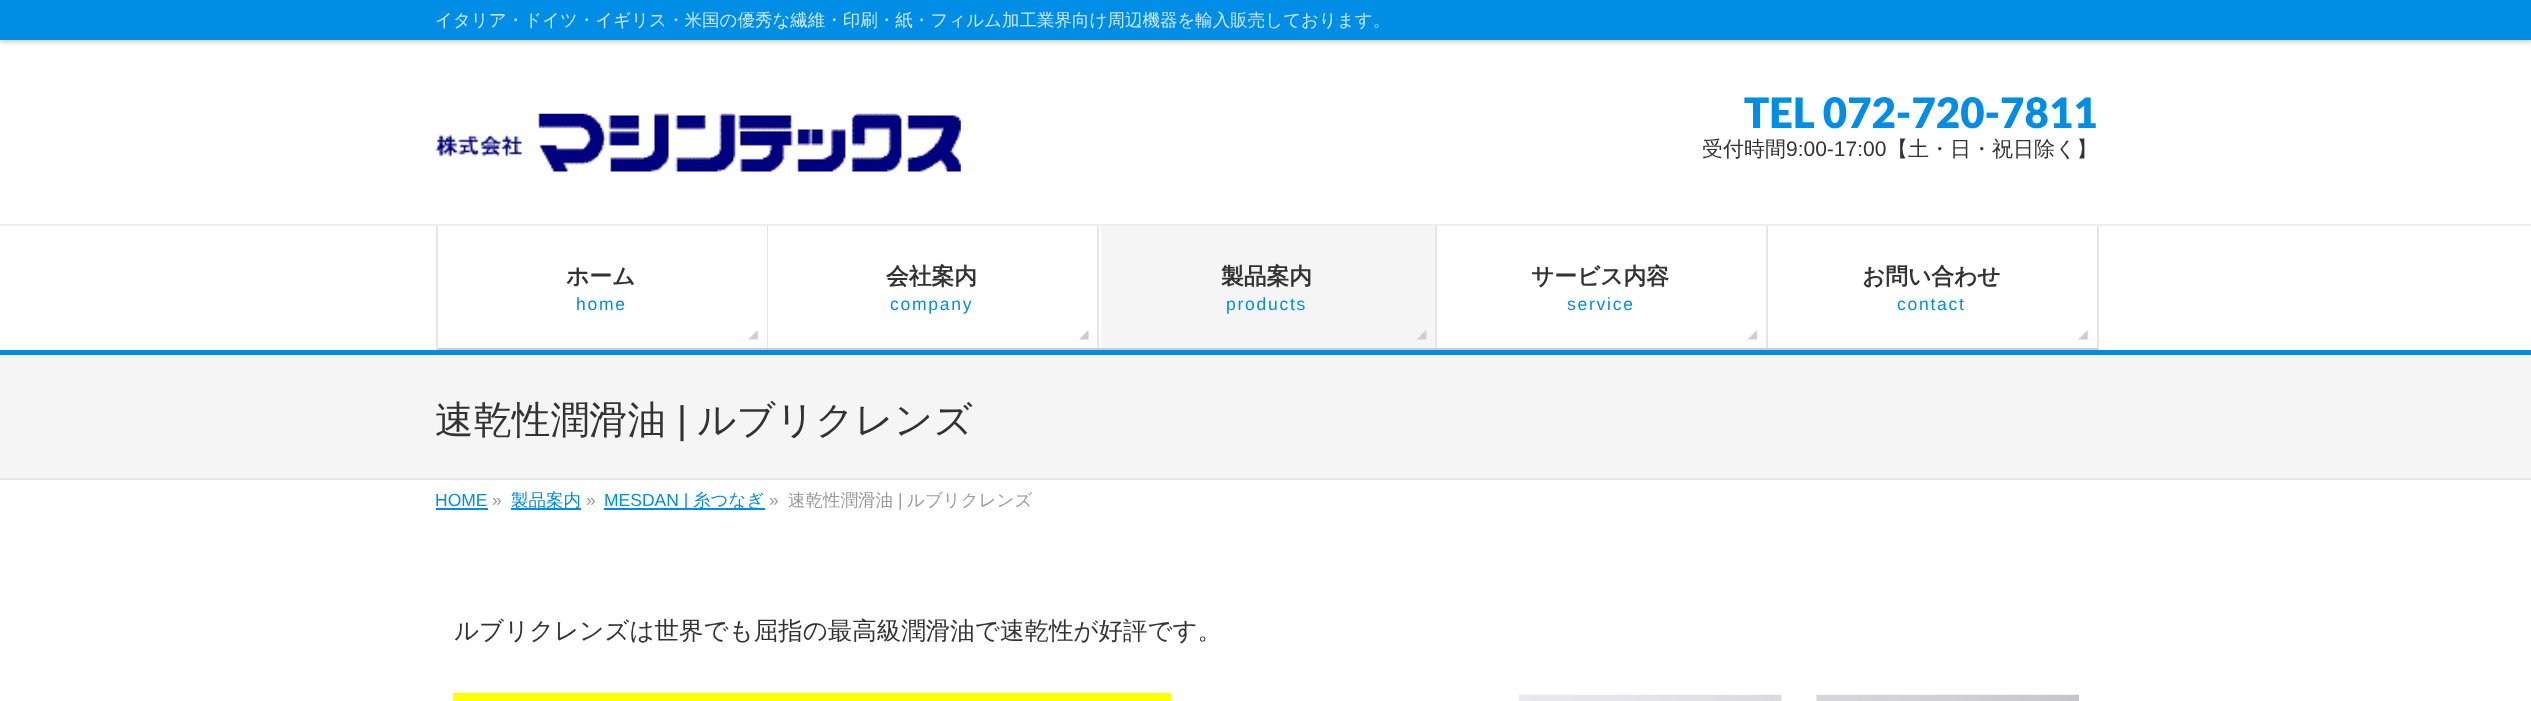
<svg xmlns="http://www.w3.org/2000/svg" width="2531" height="701">
<style>
.a{font:500 17.5px WenQuanYi Zen Hei;fill:#cce8fa}
.b{font:900 42px Lato;fill:#008de5}
.c{font:500 21px WenQuanYi Zen Hei;fill:#333}
.d{font:21px Liberation Sans;fill:#333}
.e{font:bold 22.75px WenQuanYi Zen Hei;fill:#333}
.f{font:17.5px Liberation Sans;letter-spacing:1.75px;fill:#008de5}
.g{font:500 38.5px WenQuanYi Zen Hei;fill:#333}
.h{font:38.5px Liberation Sans;fill:#333}
.i{font:17.5px Liberation Sans;fill:#008de5}
.j{font:17.5px Liberation Sans;fill:#999}
.k{font:500 17.5px WenQuanYi Zen Hei;fill:#008de5}
.l{font:500 17.5px WenQuanYi Zen Hei;fill:#999}
.m{font:500 24.5px WenQuanYi Zen Hei;fill:#333}
</style>
<rect width="100%" height="100%" fill="#fff"/>
<path fill="#00000033" filter="blur(2.5px)" d="M0 2h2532v40H0z"/>
<path fill="#008de5" d="M0 0h2531v40H0z"/>
<image href="1.png" x="435" y="113" width="526" height="59"/>
<path fill="#eee" d="M0 224h2531v2H0z"/>
<path fill="#008de5" d="M0 350h2531v5H0z"/>
<path fill="#e5e5e5" d="M436 226h2v124H436z"/>
<image href="2.png" x="749" y="330" width="10" height="10"/>
<path fill="#e5e5e5" d="M767 226h1v124H767z"/>
<path fill="#ccc" d="M438 348h330v2H438z"/>
<image href="3.png" x="1079" y="330" width="10" height="10"/>
<path fill="#e5e5e5" d="M1097 226h2v124H1097z"/>
<path fill="#ccc" d="M768 348h331v2H768z"/>
<path fill="#f5f5f5" d="M1101 226h334v122H1101z"/>
<image href="4.png" x="1417" y="330" width="10" height="10"/>
<path fill="#e5e5e5" d="M1435 226h2v124H1435z"/>
<path fill="#ccc" d="M1099 348h338v2H1099z"/>
<image href="5.png" x="1748" y="330" width="10" height="10"/>
<path fill="#e5e5e5" d="M1766 226h2v124H1766z"/>
<path fill="#ccc" d="M1437 348h331v2H1437z"/>
<image href="6.png" x="2079" y="330" width="10" height="10"/>
<path fill="#e5e5e5" d="M2097 226h2v124H2097z"/>
<path fill="#ccc" d="M1768 348h330v2H1768z"/>
<path fill="#f5f5f5" d="M0 355h2531v123H0z"/>
<path fill="#e5e5e5" d="M0 478h2531v2H0z"/>
<path fill="#008de5" d="M436 508h52v2H436z"/>
<path fill="#008de5" d="M511 508h70v2H511z"/>
<path fill="#008de5" d="M604 508h161v2H604z"/>
<path fill="#ff0" d="M453 693h718v8H453z"/>
<image href="7.png" x="1519" y="694" width="263" height="7"/>
<image href="8.png" x="1816" y="694" width="263" height="7"/>
<text class="a" x="435" y="26">イタリア・ドイツ・イギリス・米国の優秀な繊維・印刷・紙・フィルム加工業界向け周辺機器を輸入販売しております。</text>
<text class="b" x="1744" y="128">TEL 072-720-7811</text>
<text class="c" x="1702" y="156">受付時間</text>
<text class="d" x="1786" y="156">9:00-17:00</text>
<text class="c" x="1887" y="156">【土・日・祝日除く】</text>
<text class="e" x="566" y="284">ホーム</text>
<text class="f" x="576" y="310">home</text>
<text class="e" x="886" y="284">会社案内</text>
<text class="f" x="890" y="310">company</text>
<text class="e" x="1221" y="284">製品案内</text>
<text class="f" x="1226" y="310">products</text>
<text class="e" x="1531" y="284">サービス内容</text>
<text class="f" x="1567" y="310">service</text>
<text class="e" x="1862" y="284">お問い合わせ</text>
<text class="f" x="1897" y="310">contact</text>
<text class="g" x="435" y="433">速乾性潤滑油</text>
<text class="h" x="677" y="433">|</text>
<text class="g" x="697" y="433">ルブリクレンズ</text>
<text class="i" x="435" y="506">HOME</text>
<text class="j" x="492" y="506">»</text>
<text class="k" x="511" y="506">製品案内</text>
<text class="j" x="586" y="506">»</text>
<text class="i" x="604" y="506">MESDAN |</text>
<text class="k" x="693" y="506">糸つなぎ</text>
<text class="j" x="769" y="506">»</text>
<text class="l" x="788" y="506">速乾性潤滑油</text>
<text class="j" x="898" y="506">|</text>
<text class="l" x="907" y="506">ルブリクレンズ</text>
<text class="m" x="454" y="639">ルブリクレンズは世界でも屈指の最高級潤滑油で速乾性が好評です。</text>
</svg>
